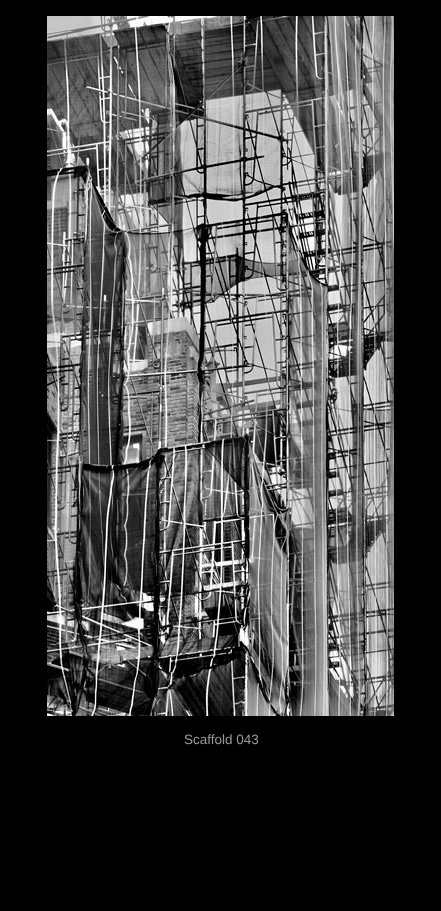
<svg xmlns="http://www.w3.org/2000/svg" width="441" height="911">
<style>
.a{font:13.5px Liberation Sans;fill:#999}
</style>
<rect width="100%" height="100%" fill="#000"/>
<image href="1.png" x="47" y="16" width="347" height="700"/>
<text class="a" x="184" y="744">Scaffold 043</text>
</svg>
